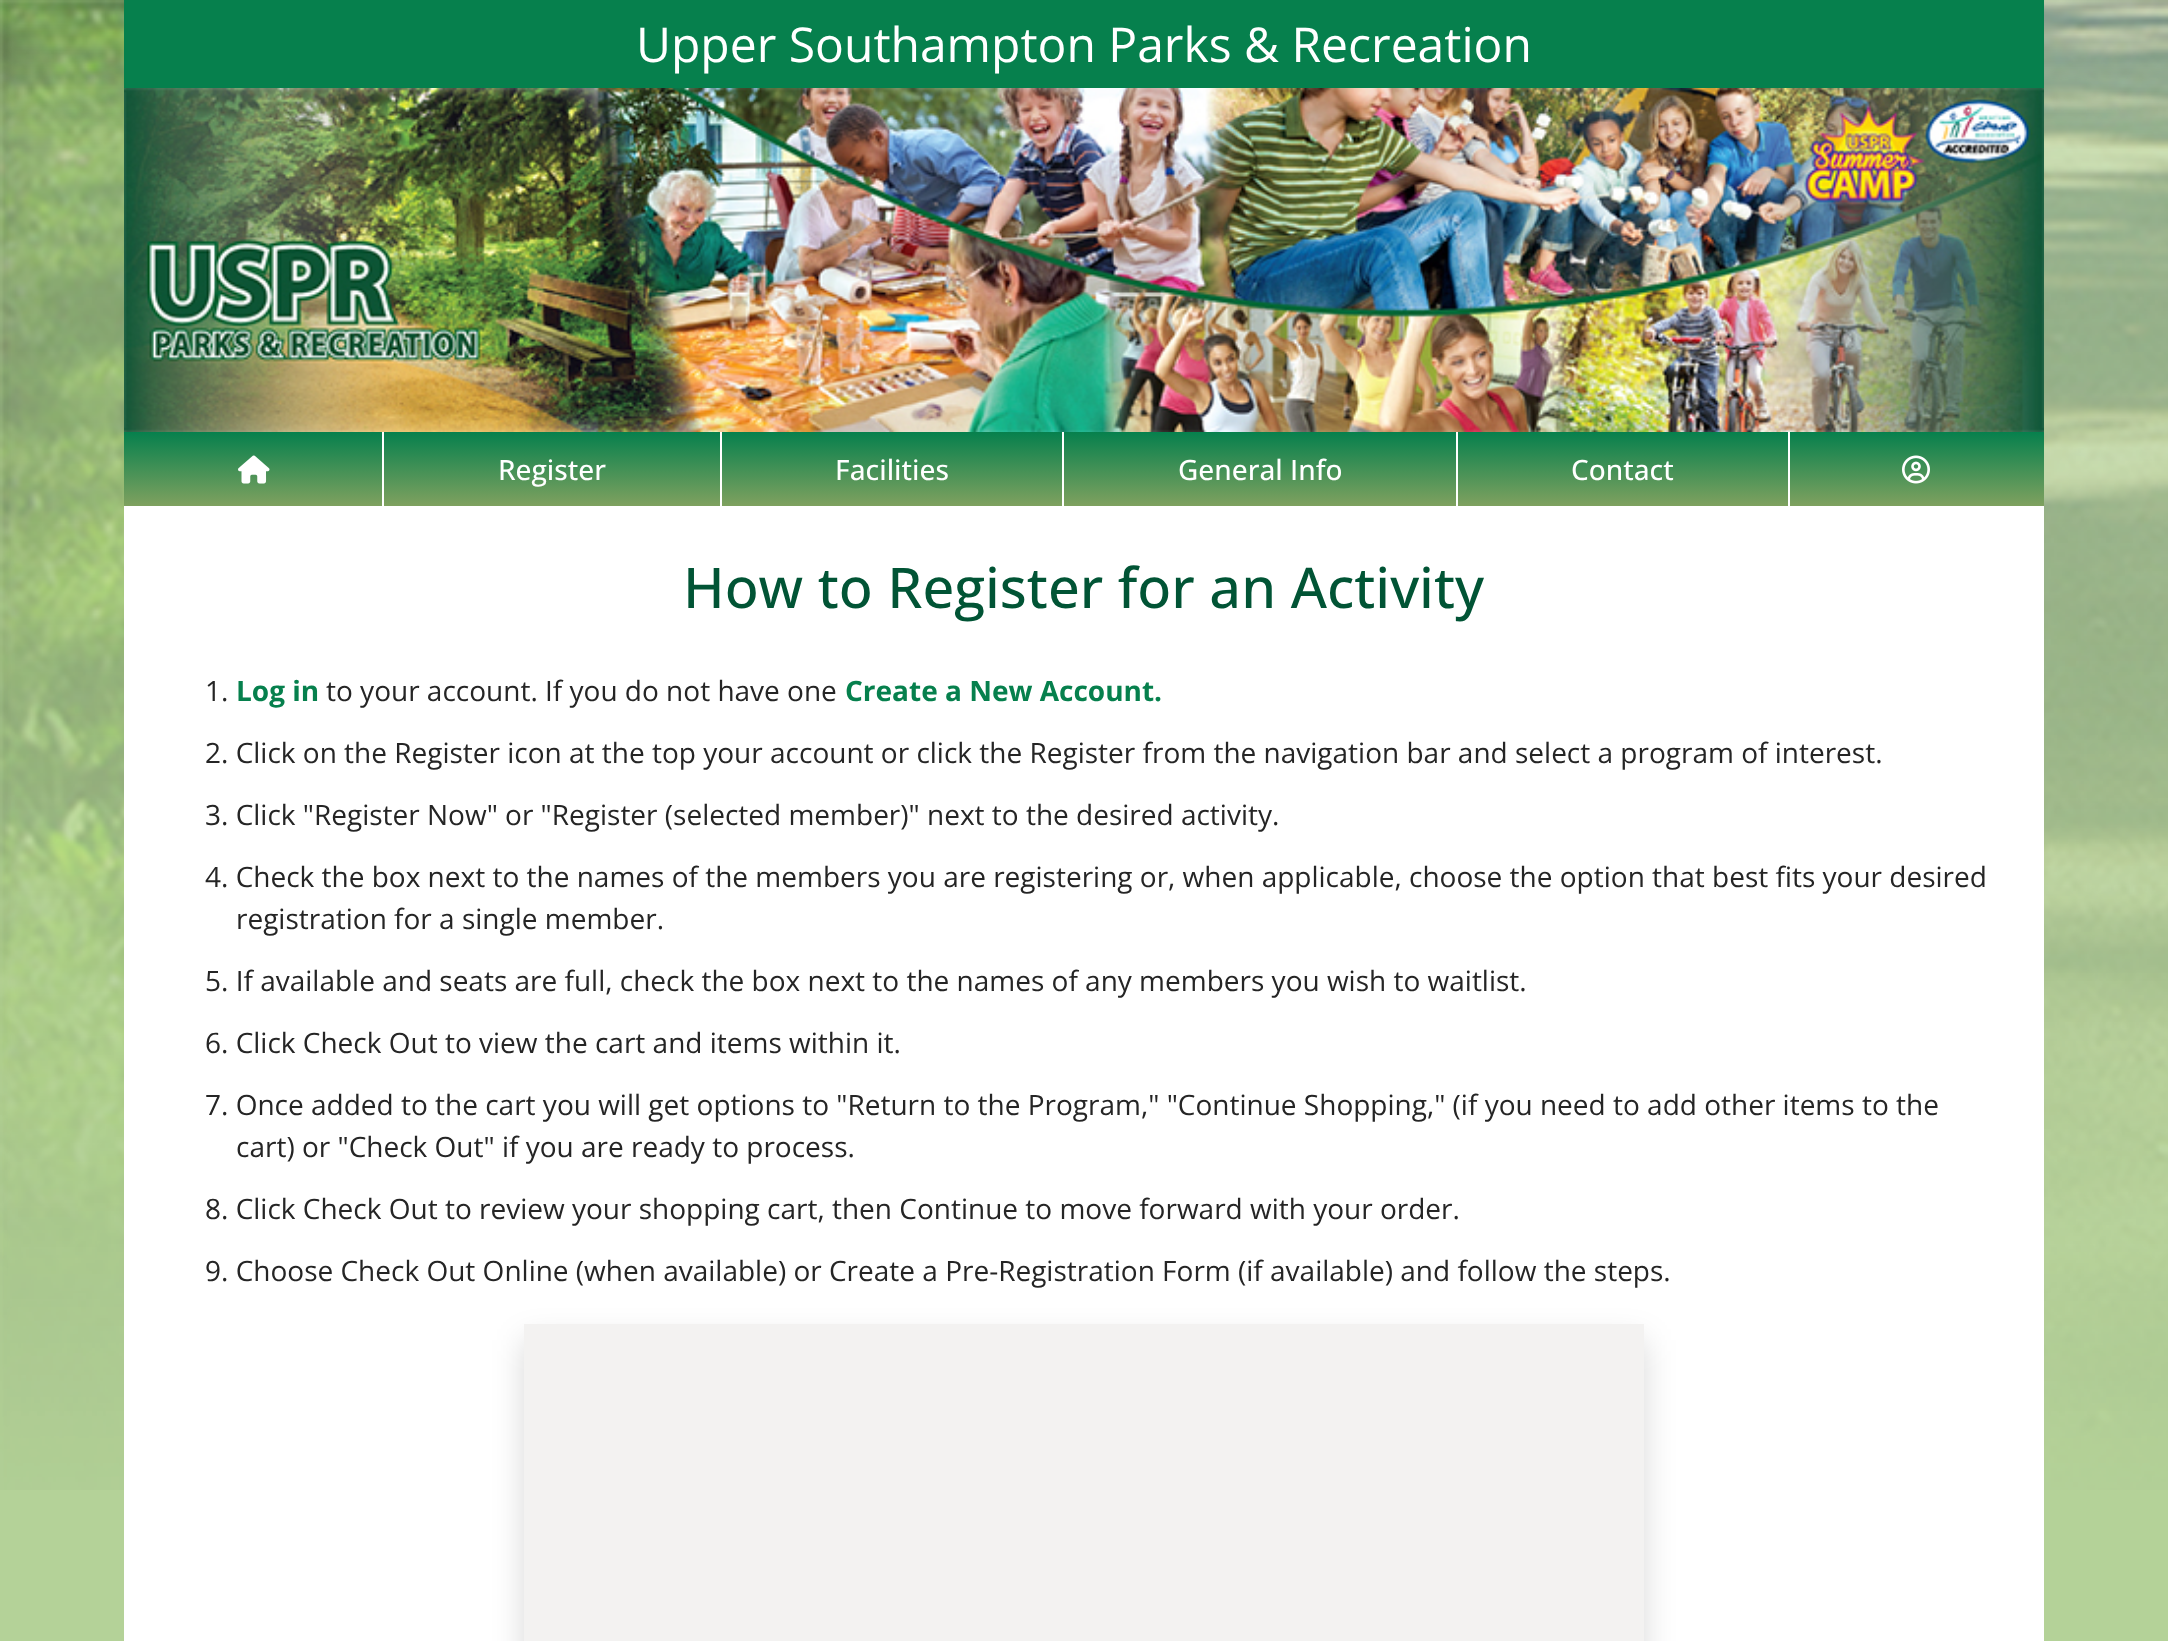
<svg xmlns="http://www.w3.org/2000/svg" width="2168" height="1641">
<style>
.a{font:48px Open Sans;fill:#fff}
.b{font:500 28px Open Sans;fill:#fff}
.c{font:500 56px Open Sans;fill:#015435}
.d{font:28px Open Sans;fill:#252525}
.e{font:bold 28px Open Sans;fill:#06804d}
</style>
<defs>
<linearGradient id="g1" gradientUnits="userSpaceOnUse" x1="1084" y1="432" x2="1084" y2="506"><stop offset="0" stop-color="#06804d"/><stop offset="1" stop-color="#7fa15f"/></linearGradient>
</defs>
<rect width="100%" height="100%" fill="#b4d298"/>
<image href="1.png" x="0" y="0" width="2168" height="1490"/>
<path fill="#fff" d="M124 506h1920v1135H124z"/>
<path fill="#06804d" d="M124 0h1920v88H124z"/>
<image href="2.png" x="124" y="88" width="1920" height="344"/>
<path fill="url(#g1)" d="M124 432h1920v74H124z"/>
<path fill="#fff" d="M382 432h2v74H382z"/>
<image href="3.png" x="238" y="455" width="32" height="29"/>
<path fill="#fff" d="M720 432h2v74H720z"/>
<path fill="#fff" d="M1062 432h2v74H1062z"/>
<path fill="#fff" d="M1456 432h2v74H1456z"/>
<path fill="#fff" d="M1788 432h2v74H1788z"/>
<image href="4.png" x="1902" y="455" width="28" height="29"/>
<path fill="#00000026" filter="blur(16px)" d="M524 1340h1120v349H524z"/>
<path fill="#f3f2f1" d="M524 1324h1120v317H524z"/>
<text class="a" x="636" y="62">Upper Southampton Parks &amp; Recreation</text>
<text class="b" x="498" y="480">Register</text>
<text class="b" x="835" y="480">Facilities</text>
<text class="b" x="1178" y="480">General Info</text>
<text class="b" x="1571" y="480">Contact</text>
<text class="c" x="683" y="608">How to Register for an Activity</text>
<text class="d" x="205" y="701">1.</text>
<text class="e" x="236" y="701">Log in</text>
<text class="d" x="326" y="701">to your account. If you do not have one</text>
<text class="e" x="845" y="701">Create a New Account.</text>
<text class="d" x="205" y="763">2. Click on the Register icon at the top your account or click the Register from the navigation bar and select a program of interest.</text>
<text class="d" x="205" y="825">3. Click "Register Now" or "Register (selected member)" next to the desired activity.</text>
<text class="d" x="205" y="887">4. Check the box next to the names of the members you are registering or, when applicable, choose the option that best fits your desired</text>
<text class="d" x="236" y="929">registration for a single member.</text>
<text class="d" x="205" y="991">5. If available and seats are full, check the box next to the names of any members you wish to waitlist.</text>
<text class="d" x="205" y="1053">6. Click Check Out to view the cart and items within it.</text>
<text class="d" x="205" y="1115">7. Once added to the cart you will get options to "Return to the Program," "Continue Shopping," (if you need to add other items to the</text>
<text class="d" x="236" y="1157">cart) or "Check Out" if you are ready to process.</text>
<text class="d" x="205" y="1219">8. Click Check Out to review your shopping cart, then Continue to move forward with your order.</text>
<text class="d" x="205" y="1281">9. Choose Check Out Online (when available) or Create a Pre-Registration Form (if available) and follow the steps.</text>
</svg>
